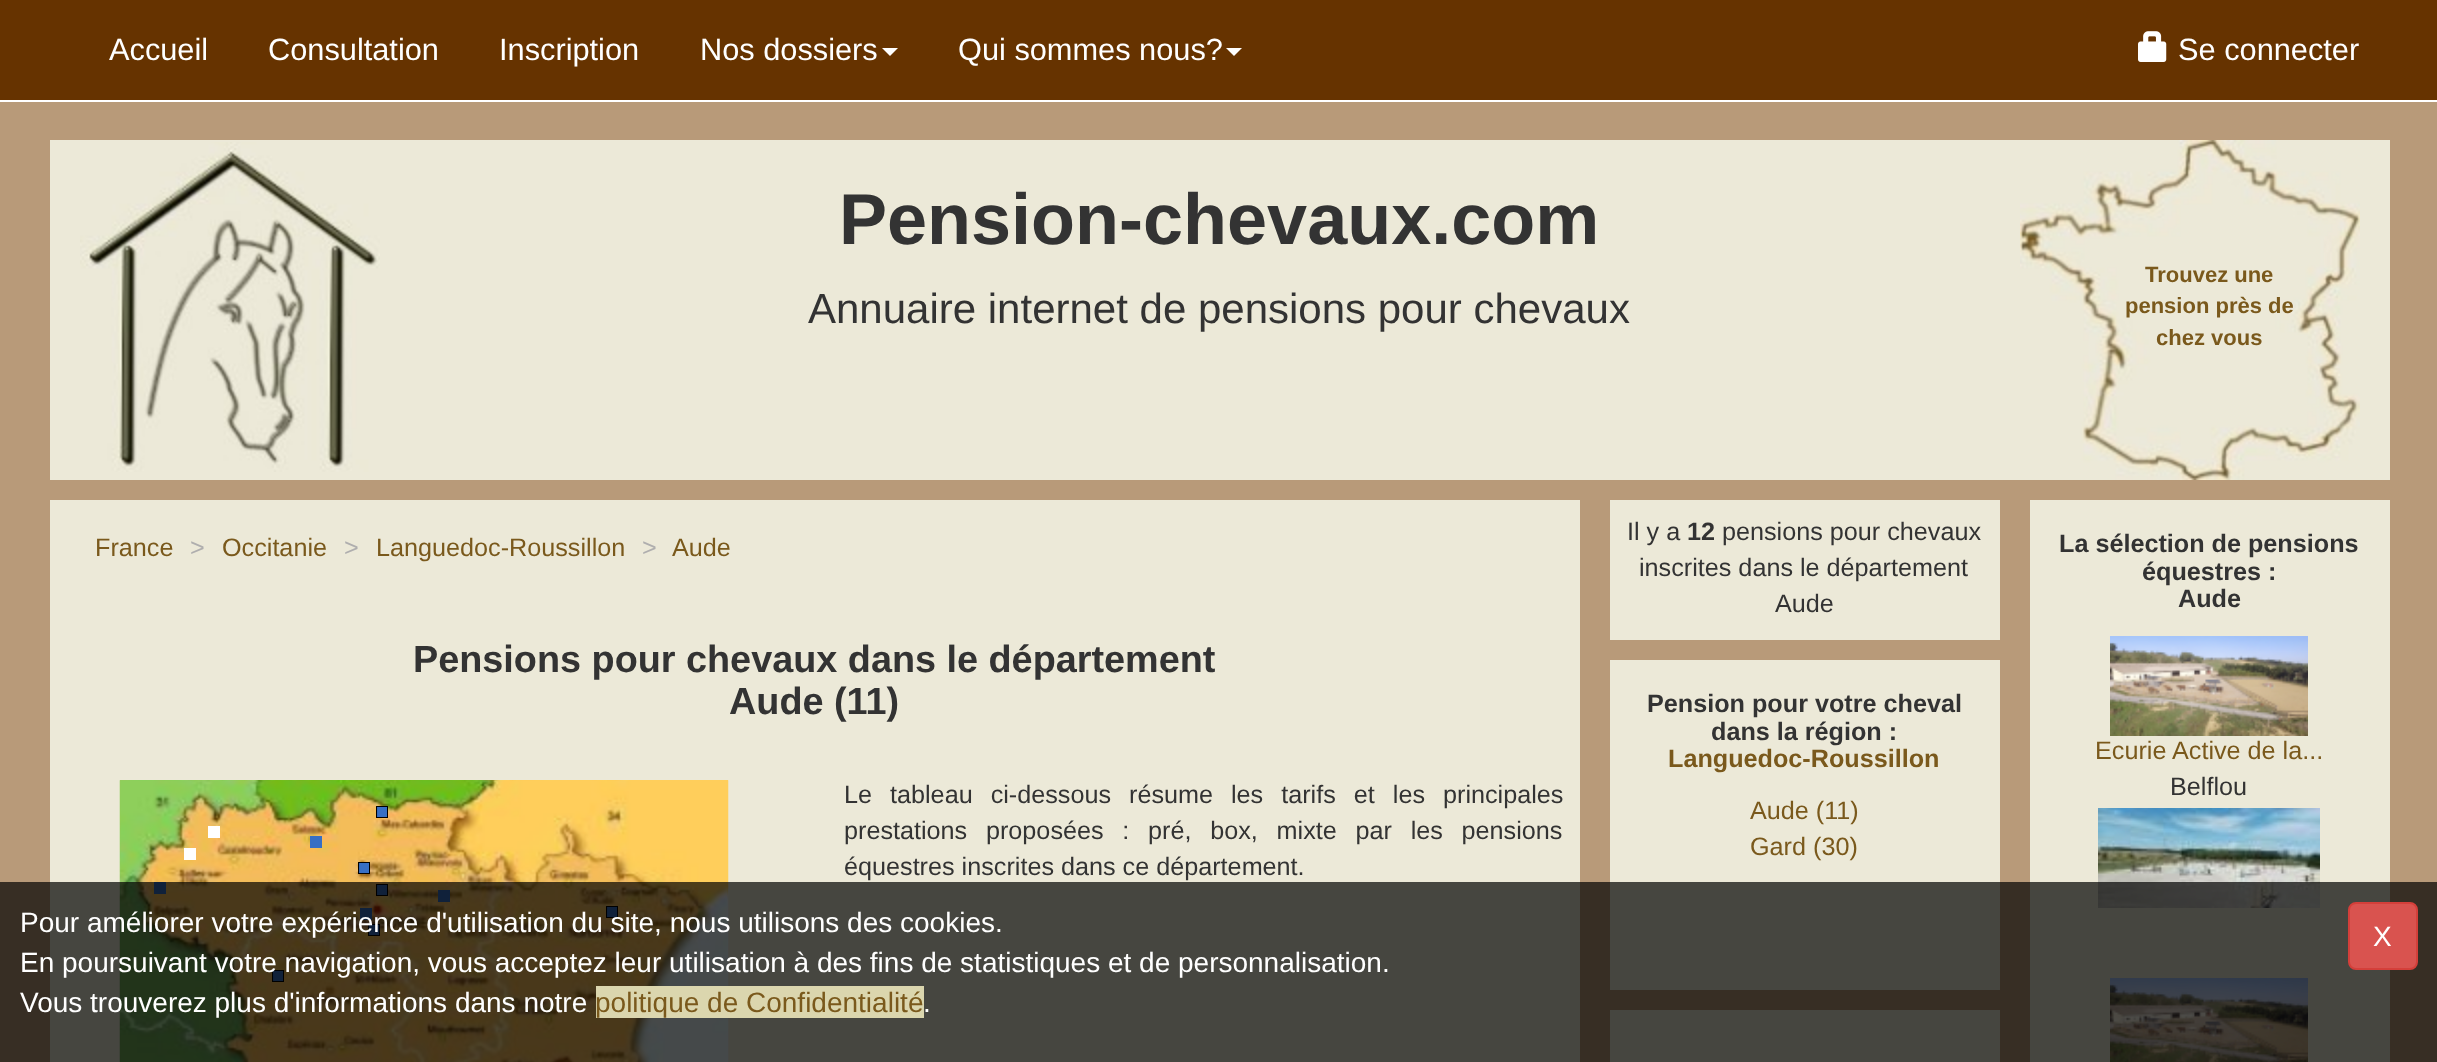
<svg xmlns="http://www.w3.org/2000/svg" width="2437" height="1062">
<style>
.a{font:30.75px Liberation Sans;fill:#fff}
.b{font:bold 72px Liberation Sans;fill:#333}
.c{font:42px Liberation Sans;fill:#333}
.d{font:bold 22px Liberation Sans;fill:#7a591c}
.e{font:25.2px Liberation Sans;fill:#7a591c}
.f{font:25.2px Liberation Sans;fill:#afaeae}
.g{font:bold 37.8px Liberation Sans;fill:#333}
.h{font:25.2px Liberation Sans;fill:#333}
.i{font:bold 25.2px Liberation Sans;fill:#333}
.j{font:bold 25.2px Liberation Sans;fill:#7a591c}
.k{font:28px Liberation Sans;fill:#fff}
.l{font:28px Liberation Sans;fill:#7a591c}
</style>
<rect width="100%" height="100%" fill="#b89a79"/>
<path fill="#630" d="M0 0h2437v100H0z"/>
<path fill="#fff" d="M0 100h2437v2H0z"/>
<path fill="#fff" d="M882 48h16l-8 8z"/>
<path fill="#fff" d="M1226 48h16l-8 8z"/>
<image href="1.png" x="2138" y="31" width="29" height="31"/>
<path fill="#ece9d8" d="M50 140h2340v340H50z"/>
<image href="2.png" x="80" y="142" width="300" height="330"/>
<image href="3.png" x="2020" y="140" width="340" height="340"/>
<path fill="#ece9d8" d="M50 500h1530v562H50z"/>
<image href="5.png" x="120" y="780" width="608" height="282"/>
<image href="4.png" x="119" y="780" width="610" height="282"/>
<image href="6.png" x="376" y="806" width="12" height="12"/>
<path fill="#fff" d="M208 826h12v12H208z"/>
<path fill="#376fc4" d="M310 836h12v12H310z"/>
<path fill="#fff" d="M184 848h12v12H184z"/>
<image href="6.png" x="358" y="862" width="12" height="12"/>
<path fill="#376fc4" d="M154 882h12v12H154z"/>
<image href="6.png" x="376" y="884" width="12" height="12"/>
<path fill="#376fc4" d="M438 890h12v12H438z"/>
<path fill="#376fc4" d="M360 908h12v12H360z"/>
<image href="6.png" x="606" y="906" width="12" height="12"/>
<image href="6.png" x="368" y="924" width="12" height="12"/>
<image href="6.png" x="272" y="970" width="12" height="12"/>
<path fill="#ece9d8" d="M1610 500h390v140H1610z"/>
<path fill="#ece9d8" d="M1610 660h390v330H1610z"/>
<path fill="#ece9d8" d="M1610 1010h390v52H1610z"/>
<path fill="#ece9d8" d="M2030 500h360v562H2030z"/>
<image href="7.png" x="2110" y="636" width="198" height="100"/>
<image href="8.png" x="2098" y="808" width="222" height="100"/>
<image href="9.png" x="2110" y="978" width="198" height="84"/>
<path fill="#000000b3" d="M0 882h2437v180H0z"/>
<path fill="#dbd6ae" d="M596 986h328v32H596z"/>
<rect fill="#d9534f" stroke="#d43f3a" stroke-width="2" x="2349" y="903" width="68" height="66" rx="7"/>
<text class="a" x="109" y="60">Accueil</text>
<text class="a" x="268" y="60">Consultation</text>
<text class="a" x="499" y="60">Inscription</text>
<text class="a" x="700" y="60">Nos dossiers</text>
<text class="a" x="958" y="60">Qui sommes nous?</text>
<text class="a" x="2178" y="60">Se connecter</text>
<text class="b" x="839" y="244">Pension-chevaux.com</text>
<text class="c" x="808" y="323">Annuaire internet de pensions pour chevaux</text>
<text class="d" x="2145" y="282">Trouvez une</text>
<text class="d" x="2125" y="313">pension près de</text>
<text class="d" x="2156" y="345">chez vous</text>
<text class="e" x="95" y="556">France</text>
<text class="f" x="190" y="556">&gt;</text>
<text class="e" x="222" y="556">Occitanie</text>
<text class="f" x="344" y="556">&gt;</text>
<text class="e" x="376" y="556">Languedoc-Roussillon</text>
<text class="f" x="642" y="556">&gt;</text>
<text class="e" x="672" y="556">Aude</text>
<text class="g" x="413" y="672">Pensions pour chevaux dans le département</text>
<text class="g" x="729" y="714">Aude (11)</text>
<text class="h" x="844" y="803" word-spacing="11">Le tableau ci-dessous résume les tarifs et les principales</text>
<text class="h" x="844" y="839" word-spacing="11.75">prestations proposées : pré, box, mixte par les pensions</text>
<text class="h" x="844" y="875">équestres inscrites dans ce département.</text>
<text class="h" x="1627" y="540">Il y a</text>
<text class="i" x="1687" y="540">12</text>
<text class="h" x="1722" y="540">pensions pour chevaux</text>
<text class="h" x="1639" y="576">inscrites dans le département</text>
<text class="h" x="1775" y="612">Aude</text>
<text class="i" x="1647" y="712">Pension pour votre cheval</text>
<text class="i" x="1711" y="740">dans la région :</text>
<text class="j" x="1668" y="767">Languedoc-Roussillon</text>
<text class="e" x="1750" y="819">Aude (11)</text>
<text class="e" x="1750" y="855">Gard (30)</text>
<text class="i" x="2059" y="552">La sélection de pensions</text>
<text class="i" x="2142" y="580">équestres :</text>
<text class="i" x="2178" y="607">Aude</text>
<text class="e" x="2095" y="759">Ecurie Active de la...</text>
<text class="h" x="2170" y="795">Belflou</text>
<text class="k" x="20" y="932">Pour améliorer votre expérience d'utilisation du site, nous utilisons des cookies.</text>
<text class="k" x="20" y="972">En poursuivant votre navigation, vous acceptez leur utilisation à des fins de statistiques et de personnalisation.</text>
<text class="k" x="20" y="1012">Vous trouverez plus d'informations dans notre</text>
<text class="l" x="595" y="1012">politique de Confidentialité</text>
<text class="k" x="923" y="1012">.</text>
<text class="k" x="2373" y="946">X</text>
</svg>
